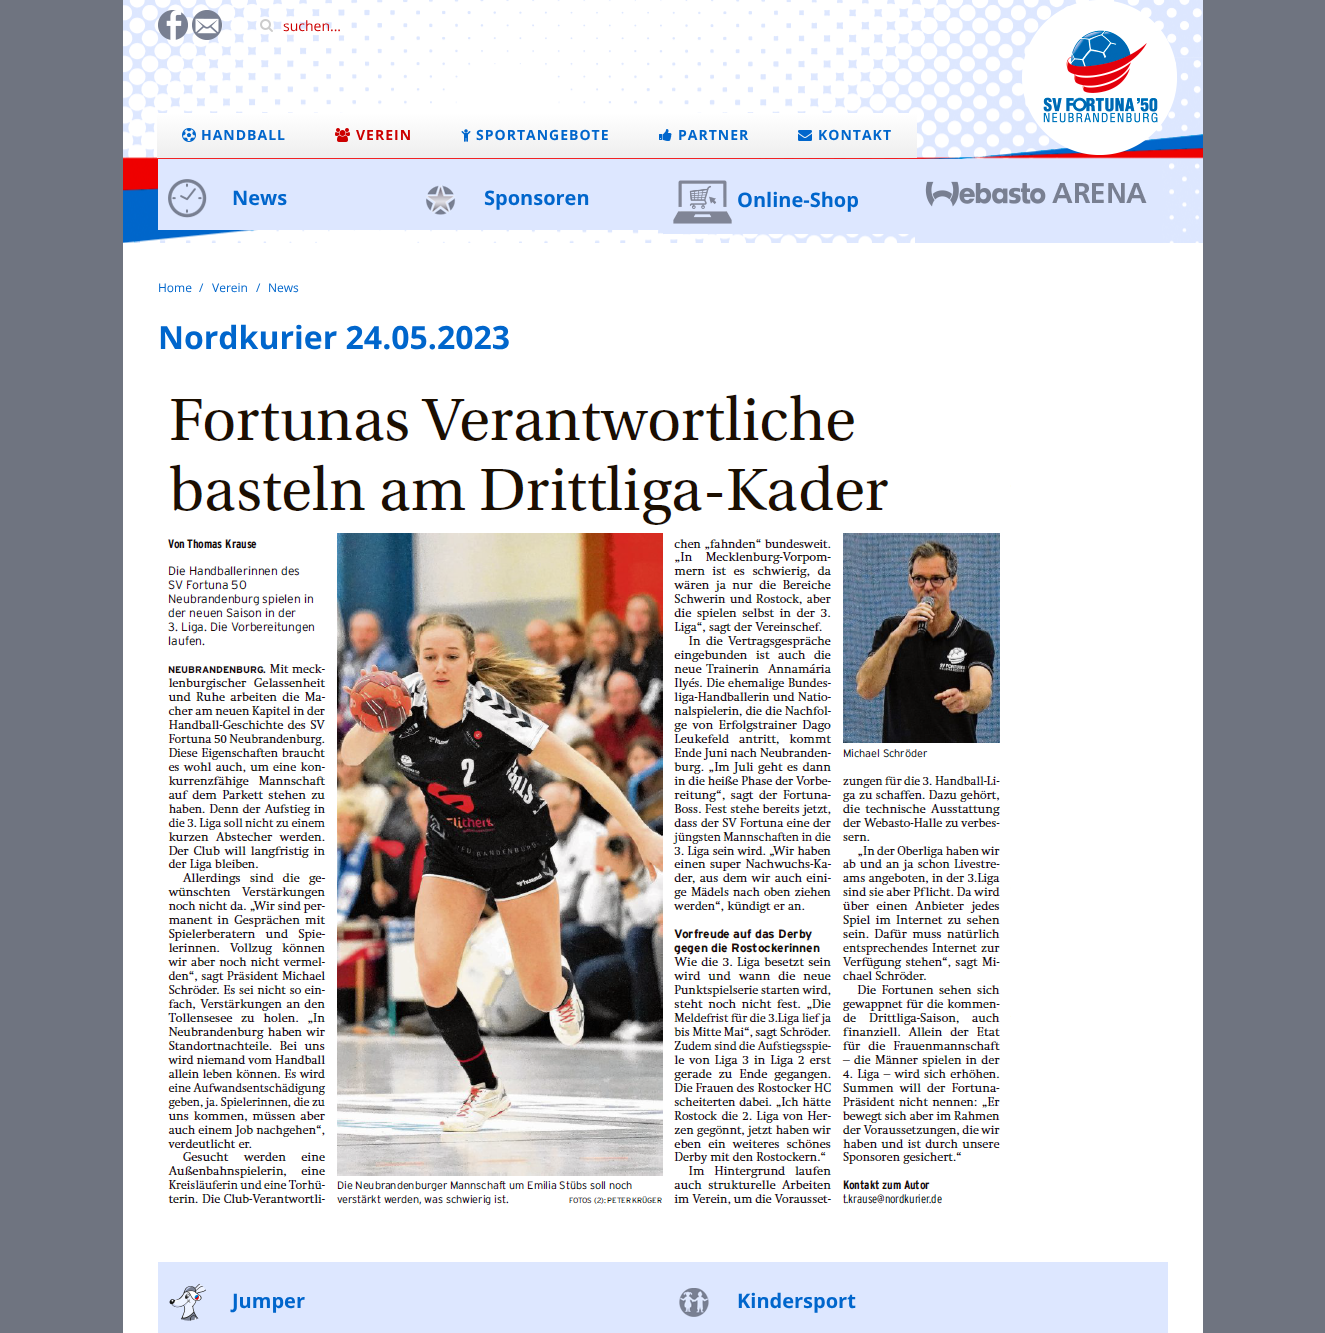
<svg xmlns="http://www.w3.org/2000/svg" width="1325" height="1333">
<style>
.a{font:14px Open Sans;fill:#c00}
.b{font:bold 14px Open Sans;letter-spacing:1px;fill:#06c}
.c{font:bold 14px Open Sans;letter-spacing:1px;fill:#c00}
.d{font:bold 20px Open Sans;fill:#06c}
.e{font:12px Open Sans;fill:#06c}
.f{font:bold 32px Open Sans;fill:#06c}
</style>
<defs>
<linearGradient id="g1" gradientUnits="userSpaceOnUse" x1="234" y1="113" x2="234" y2="158"><stop offset="0" stop-color="#fff"/><stop offset="1" stop-color="#eee"/></linearGradient>
<linearGradient id="g2" gradientUnits="userSpaceOnUse" x1="374" y1="113" x2="374" y2="158"><stop offset="0" stop-color="#fff"/><stop offset="1" stop-color="#eee"/></linearGradient>
<linearGradient id="g3" gradientUnits="userSpaceOnUse" x1="536" y1="113" x2="536" y2="158"><stop offset="0" stop-color="#fff"/><stop offset="1" stop-color="#eee"/></linearGradient>
<linearGradient id="g4" gradientUnits="userSpaceOnUse" x1="704" y1="113" x2="704" y2="158"><stop offset="0" stop-color="#fff"/><stop offset="1" stop-color="#eee"/></linearGradient>
<linearGradient id="g5" gradientUnits="userSpaceOnUse" x1="845" y1="113" x2="845" y2="158"><stop offset="0" stop-color="#fff"/><stop offset="1" stop-color="#eee"/></linearGradient>
</defs>
<rect width="100%" height="100%" fill="#6f7480"/>
<image href="1.png" x="123" y="0" width="1080" height="243"/>
<image href="2.png" x="158" y="10" width="30" height="30"/>
<image href="3.png" x="192" y="10" width="30" height="30"/>
<image href="4.png" x="260" y="19" width="13" height="13"/>
<image href="5.png" x="1022" y="0" width="155" height="155"/>
<path fill="url(#g1)" d="M157 113h153v45H157z"/>
<image href="6.png" x="182" y="128" width="14" height="14"/>
<path fill="url(#g2)" d="M310 113h126v45H310z"/>
<image href="7.png" x="335" y="128" width="15" height="14"/>
<path fill="url(#g3)" d="M436 113h198v45H436z"/>
<image href="8.png" x="461" y="129" width="10" height="13"/>
<path fill="url(#g4)" d="M634 113h139v45H634z"/>
<image href="9.png" x="659" y="129" width="13" height="12"/>
<path fill="url(#g5)" d="M773 113h144v45H773z"/>
<image href="10.png" x="798" y="130" width="14" height="11"/>
<path fill="#dde7ff" d="M158 159h505v71H158z"/>
<image href="11.png" x="168" y="179" width="39" height="39"/>
<image href="12.png" x="426" y="185" width="30" height="30"/>
<path fill="#dde7ff" d="M663 159h252v75H663z"/>
<image href="13.png" x="673" y="180" width="59" height="44"/>
<path fill="#dde7ff" d="M915 159h247v84H915z"/>
<image href="14.png" x="925" y="181" width="222" height="26"/>
<path fill="#fff" d="M123 243h1080v1090H123z"/>
<image href="15.png" x="167" y="394" width="844" height="811"/>
<path fill="#dde7ff" d="M158 1262h1010v71H158z"/>
<image href="16.png" x="169" y="1283" width="37" height="38"/>
<image href="17.png" x="679" y="1288" width="30" height="29"/>
<text class="a" x="283" y="31">suchen...</text>
<text class="b" x="201" y="140">HANDBALL</text>
<text class="c" x="356" y="140">VEREIN</text>
<text class="b" x="476" y="140">SPORTANGEBOTE</text>
<text class="b" x="678" y="140">PARTNER</text>
<text class="b" x="818" y="140">KONTAKT</text>
<text class="d" x="232" y="205">News</text>
<text class="d" x="484" y="205">Sponsoren</text>
<text class="d" x="737" y="207">Online-Shop</text>
<text class="e" x="158" y="292">Home</text>
<text class="e" x="199" y="292">/</text>
<text class="e" x="212" y="292">Verein</text>
<text class="e" x="256" y="292">/</text>
<text class="e" x="268" y="292">News</text>
<text class="f" x="158" y="349">Nordkurier 24.05.2023</text>
<text class="d" x="232" y="1308">Jumper</text>
<text class="d" x="737" y="1308">Kindersport</text>
</svg>
